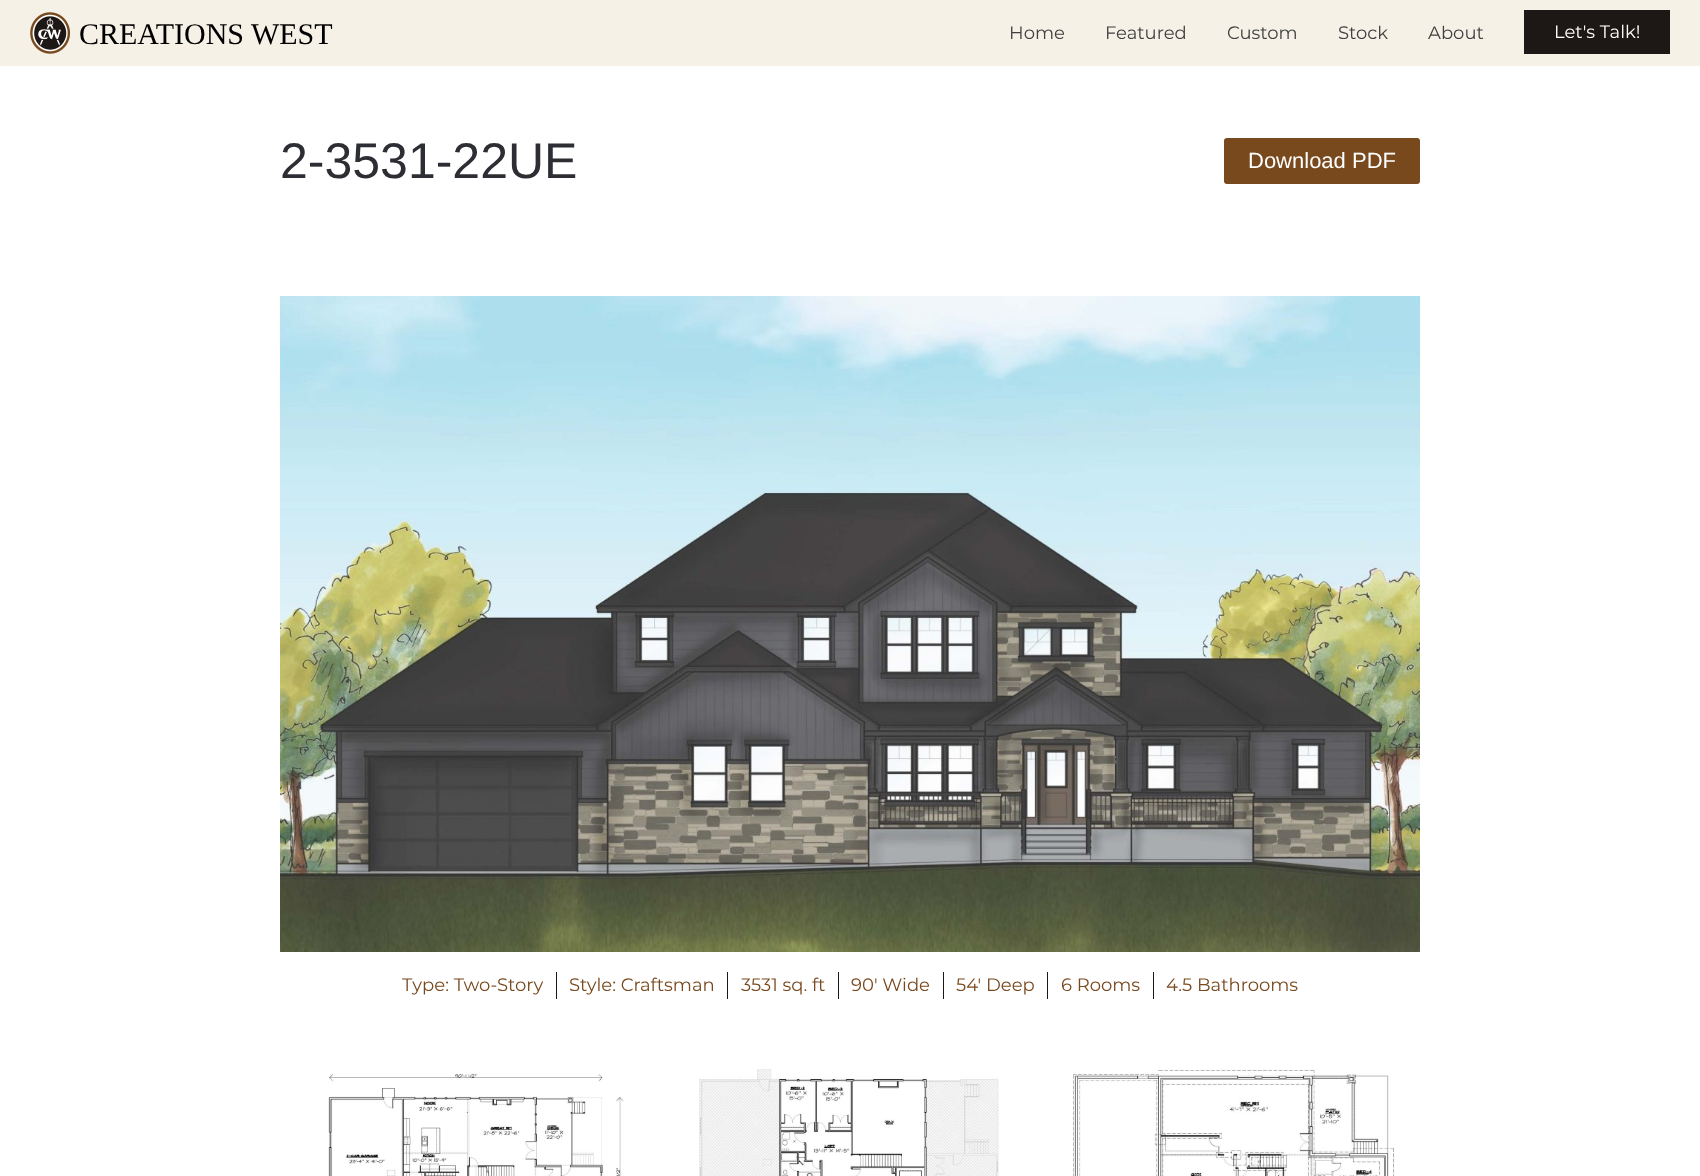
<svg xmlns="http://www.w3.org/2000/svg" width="1700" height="1176">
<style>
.a{font:30px Liberation Serif;fill:#000}
.b{font:18px Montserrat;fill:#3f3f3f}
.c{font:18px Montserrat;fill:#fff}
.d{font:50px Liberation Sans;fill:#2d2e33}
.e{font:22px Liberation Sans;fill:#fff}
.f{font:18px Montserrat;fill:#79491e}
</style>
<rect width="100%" height="100%" fill="#fff"/>
<path fill="#f5f1e6" d="M0 0h1700v66H0z"/>
<image href="1.png" x="30" y="12" width="41" height="42"/>
<path fill="#1d1715" d="M1524 10h146v44H1524z"/>
<rect fill="#79491e" x="1224" y="138" width="196" height="46" rx="3"/>
<image href="2.png" x="280" y="296" width="1140" height="656"/>
<path fill="#1d1715" d="M556 972h1v27H556z"/>
<path fill="#1d1715" d="M727 972h1v27H727z"/>
<path fill="#1d1715" d="M838 972h1v27H838z"/>
<path fill="#1d1715" d="M943 972h1v27H943z"/>
<path fill="#1d1715" d="M1047 972h1v27H1047z"/>
<path fill="#1d1715" d="M1153 972h1v27H1153z"/>
<image href="3.png" x="328" y="1073" width="296" height="103"/>
<image href="4.png" x="699" y="1069" width="300" height="107"/>
<image href="5.png" x="1073" y="1069" width="322" height="107"/>
<text class="a" x="79" y="44">CREATIONS WEST</text>
<text class="b" x="1009" y="39">Home</text>
<text class="b" x="1105" y="39">Featured</text>
<text class="b" x="1227" y="39">Custom</text>
<text class="b" x="1338" y="39">Stock</text>
<text class="b" x="1428" y="39">About</text>
<text class="c" x="1554" y="38">Let's Talk!</text>
<text class="d" x="280" y="178">2-3531-22UE</text>
<text class="e" x="1248" y="168">Download PDF</text>
<text class="f" x="402" y="991">Type: Two-Story</text>
<text class="f" x="569" y="991">Style: Craftsman</text>
<text class="f" x="741" y="991">3531 sq. ft</text>
<text class="f" x="851" y="991">90' Wide</text>
<text class="f" x="956" y="991">54' Deep</text>
<text class="f" x="1061" y="991">6 Rooms</text>
<text class="f" x="1166" y="991">4.5 Bathrooms</text>
</svg>
